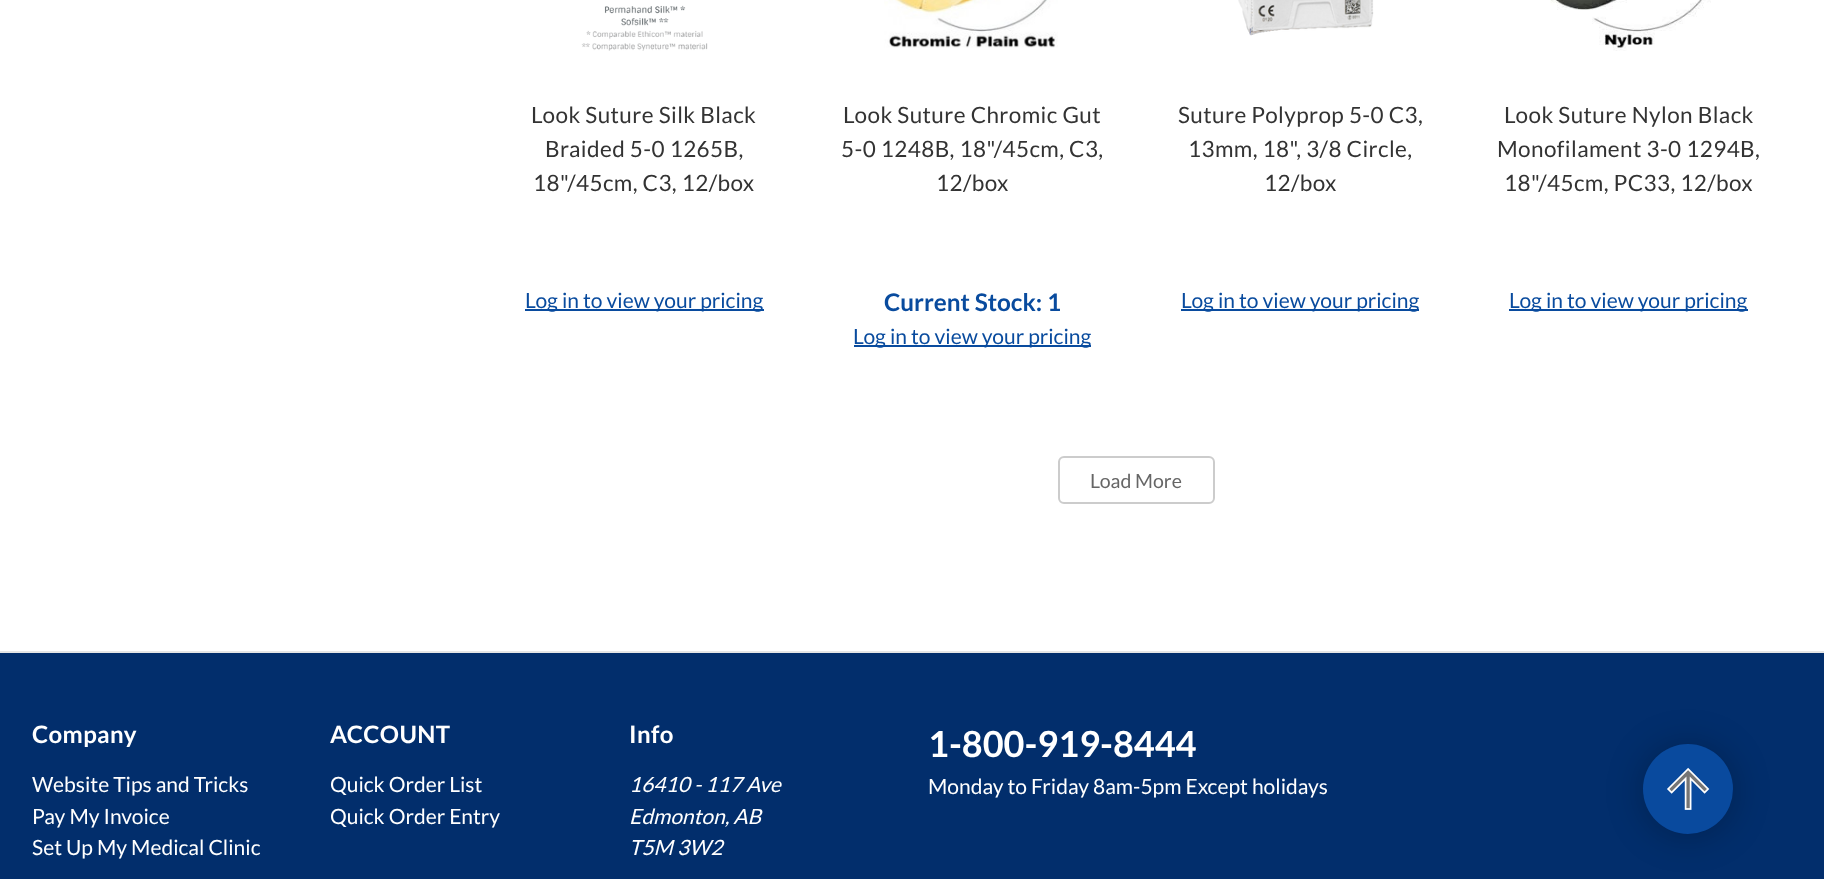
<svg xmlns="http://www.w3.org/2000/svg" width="1824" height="879">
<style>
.a{font:22.5px Lato;letter-spacing:0.4px;fill:#333}
.b{font:21px Lato;fill:#094b9e}
.c{font:bold 24.25px Lato;fill:#094b9e}
.d{font:19.5px Lato;fill:#666}
.e{font:bold 24px Lato;letter-spacing:0.4px;fill:#fff}
.f{font:21px Lato;fill:#fff}
.g{font:italic 21px Lato;fill:#fff}
.h{font:bold 36px Lato;fill:#fff}
</style>
<rect width="100%" height="100%" fill="#fff"/>
<image href="1.png" x="581" y="5" width="127" height="46"/>
<path fill="#094b9e" d="M525 309h239v2H525z"/>
<image href="2.png" x="884" y="0" width="174" height="48"/>
<path fill="#094b9e" d="M854 345h237v2H854z"/>
<image href="3.png" x="1238" y="0" width="136" height="36"/>
<path fill="#094b9e" d="M1181 309h238v2H1181z"/>
<image href="4.png" x="1550" y="0" width="161" height="51"/>
<path fill="#094b9e" d="M1509 309h239v2H1509z"/>
<rect fill="none" stroke="#ccc" stroke-width="2" x="1059" y="457" width="155" height="46" rx="5"/>
<path fill="#022e6c" d="M0 653h1824v226H0z"/>
<path fill="#e5e5e5" d="M0 651h1824v2H0z"/>
<rect fill="#00000040" filter="blur(18px)" x="1643" y="746" width="90" height="90" rx="45"/>
<circle fill="#094a9e" cx="1688" cy="789" r="45"/>
<image href="5.png" x="1667" y="767" width="43" height="43"/>
<text class="a" x="531" y="123">Look Suture Silk Black</text>
<text class="a" x="545" y="157">Braided 5-0 1265B,</text>
<text class="a" x="533" y="191">18"/45cm, C3, 12/box</text>
<text class="b" x="525" y="308">Log in to view your pricing</text>
<text class="a" x="843" y="123">Look Suture Chromic Gut</text>
<text class="a" x="841" y="157">5-0 1248B, 18"/45cm, C3,</text>
<text class="a" x="936" y="191">12/box</text>
<text class="c" x="884" y="311">Current Stock: 1</text>
<text class="b" x="853" y="344">Log in to view your pricing</text>
<text class="a" x="1178" y="123">Suture Polyprop 5-0 C3,</text>
<text class="a" x="1188" y="157">13mm, 18", 3/8 Circle,</text>
<text class="a" x="1264" y="191">12/box</text>
<text class="b" x="1181" y="308">Log in to view your pricing</text>
<text class="a" x="1504" y="123">Look Suture Nylon Black</text>
<text class="a" x="1497" y="157">Monofilament 3-0 1294B,</text>
<text class="a" x="1504" y="191">18"/45cm, PC33, 12/box</text>
<text class="b" x="1509" y="308">Log in to view your pricing</text>
<text class="d" x="1090" y="488">Load More</text>
<text class="e" x="32" y="743">Company</text>
<text class="f" x="32" y="792">Website Tips and Tricks</text>
<text class="f" x="32" y="824">Pay My Invoice</text>
<text class="f" x="32" y="855">Set Up My Medical Clinic</text>
<text class="e" x="330" y="743">ACCOUNT</text>
<text class="f" x="330" y="792">Quick Order List</text>
<text class="f" x="330" y="824">Quick Order Entry</text>
<text class="e" x="629" y="743">Info</text>
<text class="g" x="629" y="792">16410 - 117 Ave</text>
<text class="g" x="629" y="824">Edmonton, AB</text>
<text class="g" x="629" y="855">T5M 3W2</text>
<text class="h" x="928" y="757">1-800-919-8444</text>
<text class="f" x="928" y="794">Monday to Friday 8am-5pm Except holidays</text>
</svg>
